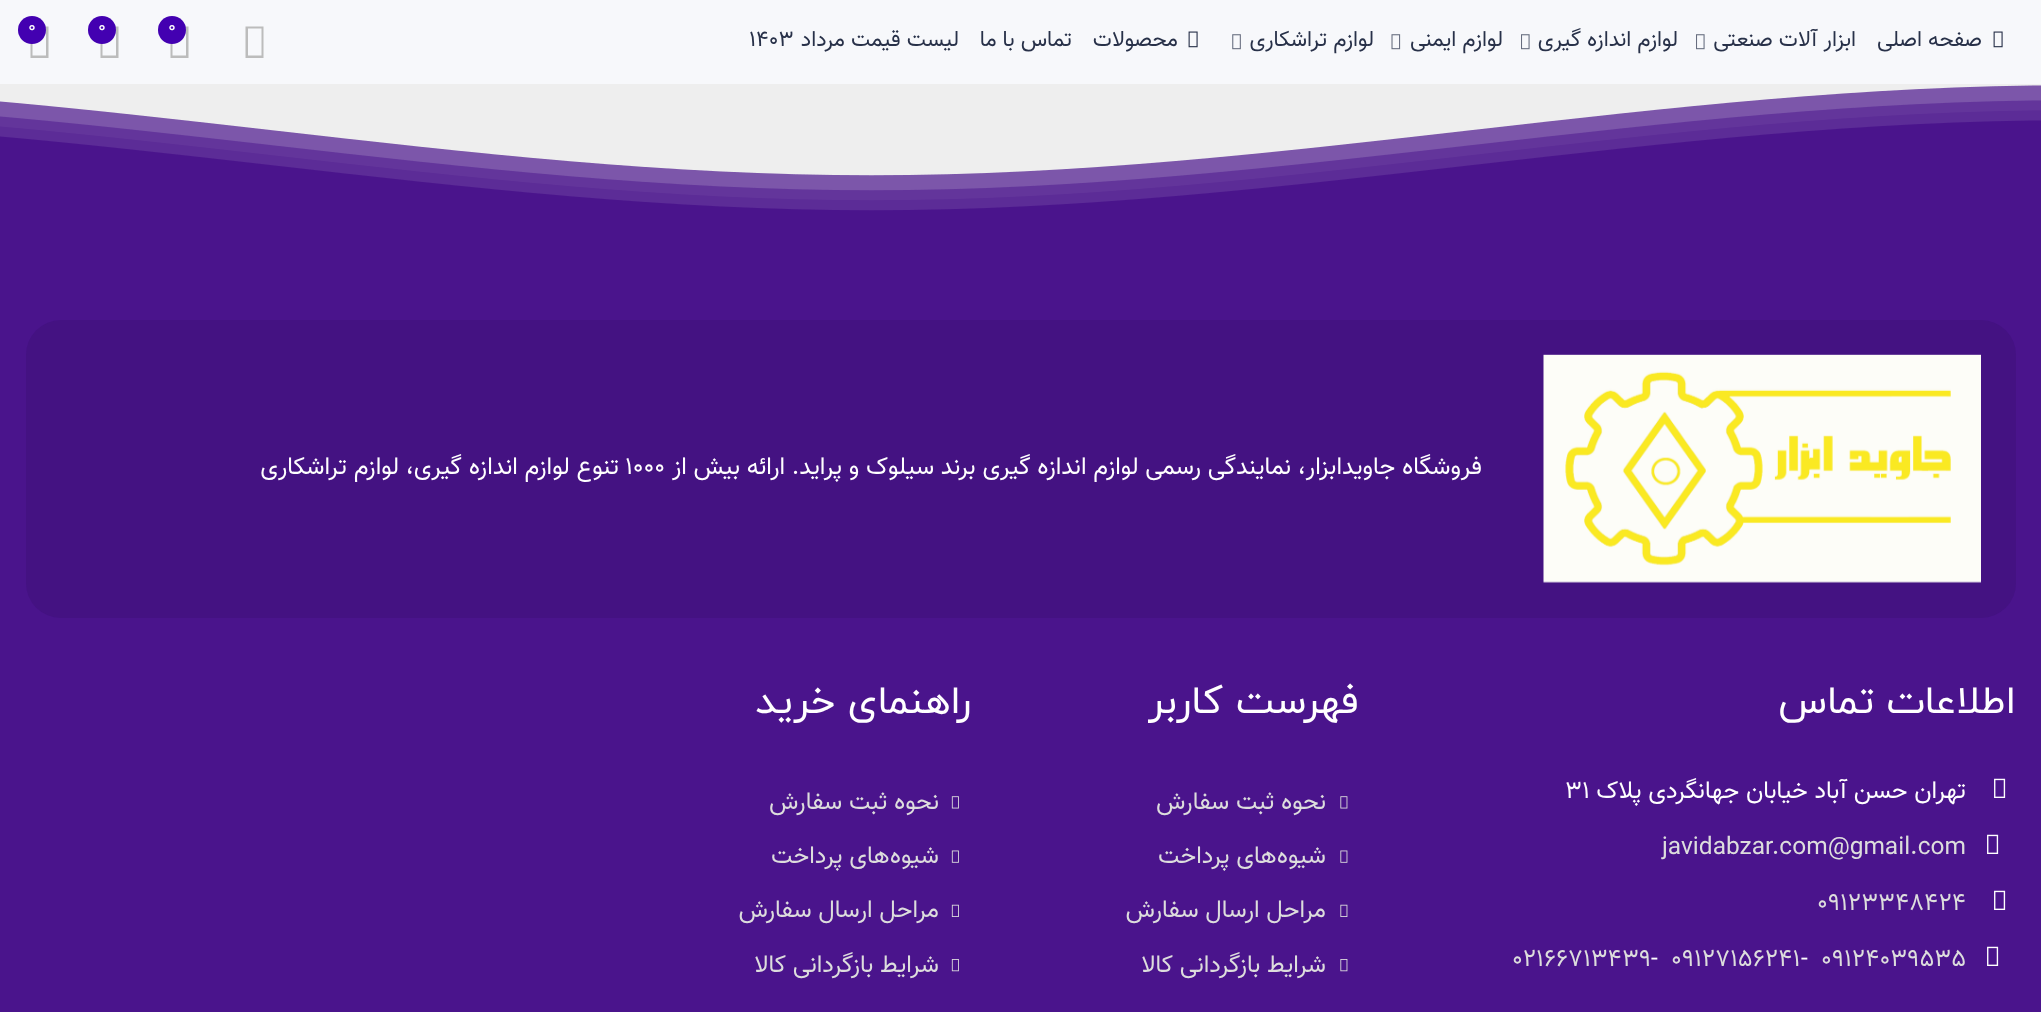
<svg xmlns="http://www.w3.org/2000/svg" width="2041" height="1012">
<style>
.a{font:22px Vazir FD;direction:rtl;fill:#283149}
.b{font:22px Vazir FD;fill:#283149}
.c{font:18px Vazir FD;fill:#fff}
.d{font:24.5px Vazir FD;direction:rtl;fill:#fff}
.e{font:24.5px Vazir FD;fill:#fff}
.f{font:39.25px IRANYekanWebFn;direction:rtl;fill:#fff}
.g{font:24.5px Vazir FD;fill:#ddd}
.h{font:24.5px Vazir FD;direction:rtl;fill:#ddd}
</style>
<rect width="100%" height="100%" fill="#eee"/>
<path fill="#f7f8fb" d="M0 0h2041v84H0z"/>
<image href="1.png" x="1993" y="31" width="10" height="17"/>
<image href="2.png" x="1696" y="34" width="9" height="16"/>
<image href="2.png" x="1521" y="34" width="9" height="16"/>
<image href="3.png" x="1391" y="34" width="10" height="16"/>
<image href="4.png" x="1232" y="34" width="9" height="16"/>
<image href="1.png" x="1188" y="31" width="10" height="17"/>
<path fill="#bcbcbc" d="M245.5 58v-31.5h18v31.5zm2.5-2.5h13.5v-27h-13.5z"/>
<path fill="#bcbcbc" d="M170.5 58v-31.5h18v31.5zm2-2.5h13.5v-27h-13.5z"/>
<circle fill="#4300b1" cx="172" cy="30" r="14"/>
<path fill="#bcbcbc" d="M100.5 58v-31.5h18v31.5zm2-2.5h13.5v-27h-13.5z"/>
<circle fill="#4300b1" cx="102" cy="30" r="14"/>
<path fill="#bcbcbc" d="M30.5 58v-31.5h18v31.5zm2-2.5h13.5v-27h-13.5z"/>
<circle fill="#4300b1" cx="32" cy="30" r="14"/>
<image href="5.png" x="0" y="85" width="2041" height="130"/>
<path fill="#4a148c" d="M0 215h2041v797H0z"/>
<rect fill="#441282" x="26" y="320" width="1990" height="298" rx="35"/>
<image href="6.png" x="1543" y="354" width="438" height="229"/>
<image href="7.png" x="1994" y="778" width="12" height="20"/>
<image href="7.png" x="1987" y="834" width="12" height="20"/>
<image href="7.png" x="1994" y="890" width="12" height="20"/>
<image href="7.png" x="1987" y="946" width="12" height="20"/>
<image href="8.png" x="1340" y="796" width="8" height="13"/>
<image href="9.png" x="1340" y="850" width="8" height="13"/>
<image href="10.png" x="1340" y="904" width="8" height="13"/>
<image href="11.png" x="1340" y="959" width="8" height="13"/>
<image href="12.png" x="951" y="796" width="8" height="13"/>
<image href="13.png" x="951" y="850" width="8" height="13"/>
<image href="14.png" x="951" y="904" width="8" height="13"/>
<image href="15.png" x="951" y="959" width="8" height="13"/>
<text class="a" x="1982" y="46">صفحه اصلی</text>
<text class="a" x="1856" y="46">ابزار آلات صنعتی</text>
<text class="a" x="1678" y="46">لوازم اندازه گیری</text>
<text class="a" x="1503" y="46">لوازم ایمنی</text>
<text class="a" x="1374" y="46">لوازم تراشکاری</text>
<text class="a" x="1178" y="46">محصولات</text>
<text class="a" x="1072" y="46">تماس با ما</text>
<text class="a" x="959" y="46">لیست قیمت مرداد</text>
<text class="b" x="749" y="46">1403</text>
<text class="c" x="168" y="32">0</text>
<text class="c" x="98" y="32">0</text>
<text class="c" x="28" y="32">0</text>
<text class="d" x="1482" y="474">فروشگاه جاویدابزار، نمایندگی رسمی لوازم اندازه گیری برند سیلوک و پراید. ارائه بیش از</text>
<text class="e" x="625" y="474">1000</text>
<text class="d" x="619" y="474">تنوع لوازم اندازه گیری، لوازم تراشکاری</text>
<text class="f" x="2016" y="713">اطلاعات تماس</text>
<text class="d" x="1966" y="798">تهران حسن آباد خیابان جهانگردی پلاک</text>
<text class="e" x="1565" y="798">31</text>
<text class="g" x="1662" y="854">javidabzar.com@gmail.com</text>
<text class="g" x="1817" y="910">09123348424</text>
<text class="g" x="1821" y="966">09124039535</text>
<text class="e" x="1801" y="966">-</text>
<text class="g" x="1671" y="966">09127156241</text>
<text class="e" x="1651" y="966">-</text>
<text class="g" x="1512" y="966">02166713439</text>
<text class="f" x="1358" y="713">فهرست کاربر</text>
<text class="h" x="1326" y="809">نحوه ثبت سفارش</text>
<text class="h" x="1326" y="863">شیوه‌های پرداخت</text>
<text class="h" x="1326" y="917">مراحل ارسال سفارش</text>
<text class="h" x="1326" y="972">شرایط بازگردانی کالا</text>
<text class="f" x="971" y="713">راهنمای خرید</text>
<text class="h" x="939" y="809">نحوه ثبت سفارش</text>
<text class="h" x="939" y="863">شیوه‌های پرداخت</text>
<text class="h" x="939" y="917">مراحل ارسال سفارش</text>
<text class="h" x="939" y="972">شرایط بازگردانی کالا</text>
</svg>
